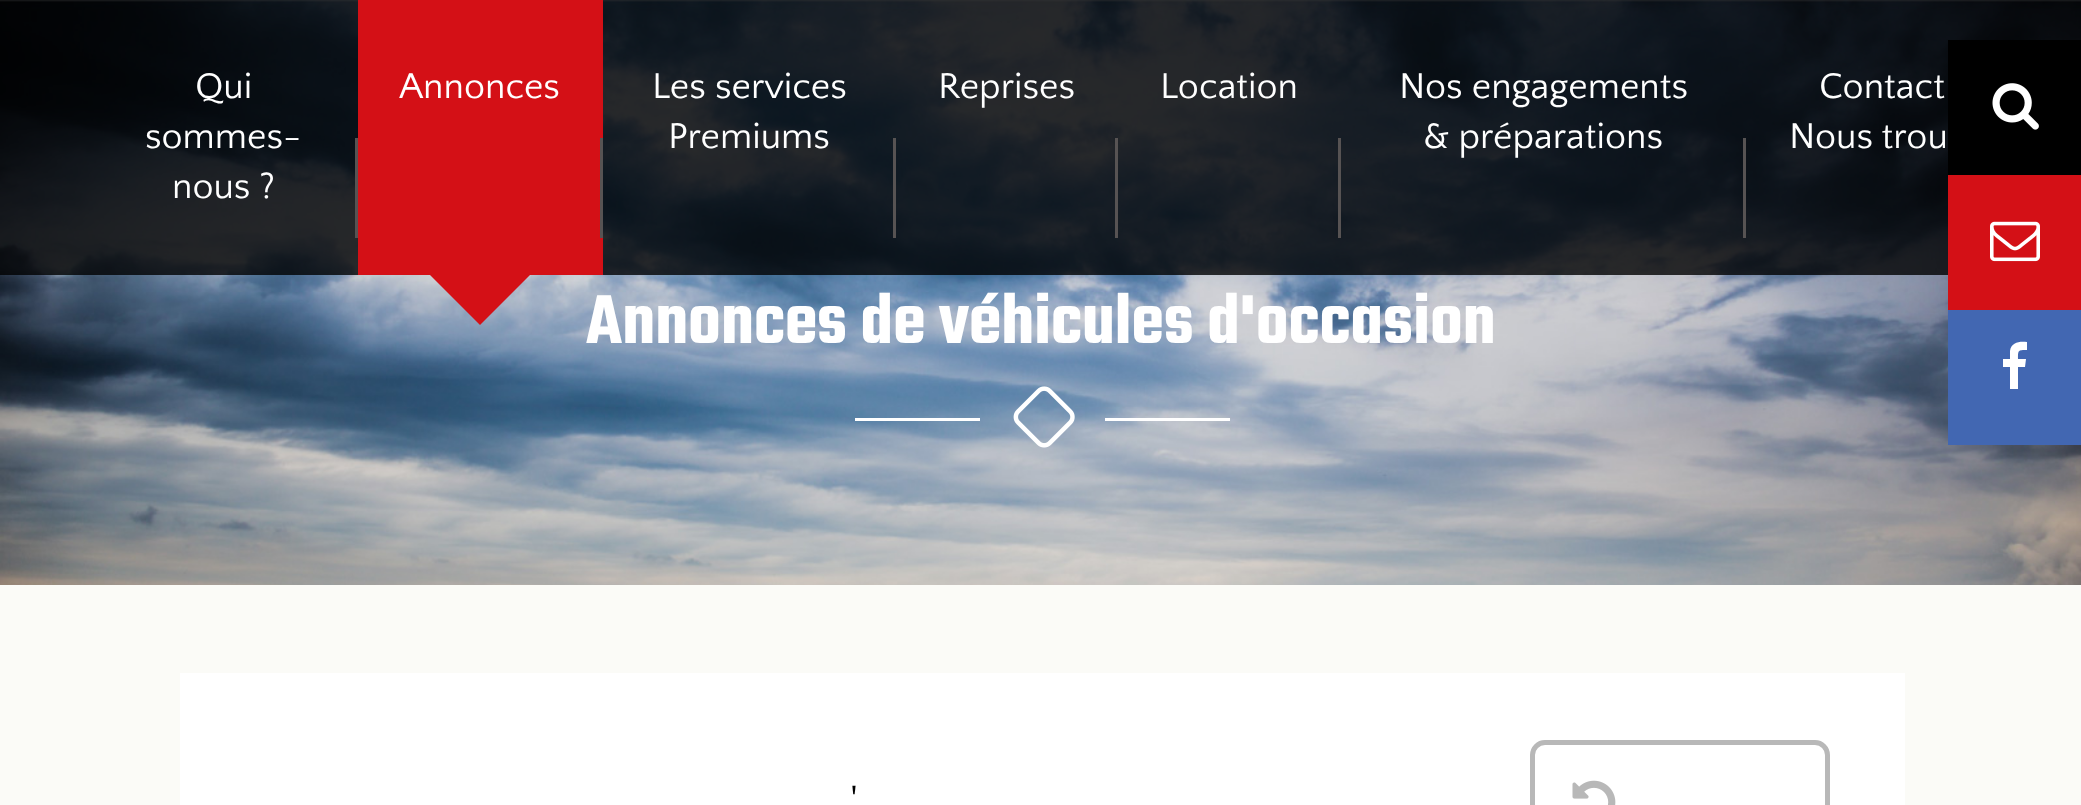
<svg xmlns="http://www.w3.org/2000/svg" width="2081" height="805">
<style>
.a{font:37.5px Quattrocento Sans;fill:#fff}
.b{font:600 75px Teko;fill:#fff}
.c{font:40px Quattrocento Sans;fill:#000}
</style>
<rect width="100%" height="100%" fill="#fbfbf7"/>
<image href="3.png" x="0" y="0" width="2081" height="585"/>
<path fill="#000000cc" d="M0 0h2081v275H0z"/>
<path fill="#575353" d="M355 138h3v100H355z"/>
<path fill="#d41016" d="M358 0h245v275H358z"/>
<path fill="#575353" d="M600 138h3v100H600z"/>
<path fill="#d41016" d="M430 275h100l-50 50z"/>
<path fill="#575353" d="M893 138h3v100H893z"/>
<path fill="#575353" d="M1115 138h3v100H1115z"/>
<path fill="#575353" d="M1338 138h3v100H1338z"/>
<path fill="#575353" d="M1743 138h3v100H1743z"/>
<path fill="#000" d="M1948 40h133v135H1948z"/>
<image href="1.png" x="1992" y="83" width="47" height="47"/>
<path fill="#d41016" d="M1948 175h133v135H1948z"/>
<image href="2.png" x="1990" y="221" width="50" height="41"/>
<path fill="#4267b2" d="M1948 310h133v135H1948z"/>
<path fill="#fff" d="M2027 342v8c-9 0-9 0-9 9h8l-1 8h-7v22h-8v-22h-7v-8h7v-8c1-9 10-10 17-9z"/>
<path fill="#fff" d="M855 418h125v3H855z"/>
<path fill="#fff" d="M1105 418h125v3H1105z"/>
<image href="4.png" x="1013" y="386" width="62" height="62"/>
<path fill="#fff" d="M180 673h1725v132H180z"/>
<rect fill="none" stroke="#b8b8b8" stroke-width="5" x="1532.5" y="742.5" width="295" height="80" rx="12.5"/>
<image href="5.png" x="1572" y="780" width="44" height="25"/>
<text class="a" x="195" y="98">Qui</text>
<text class="a" x="145" y="148">sommes-</text>
<text class="a" x="172" y="198">nous ?</text>
<text class="a" x="399" y="98">Annonces</text>
<text class="a" x="652" y="98">Les services</text>
<text class="a" x="668" y="148">Premiums</text>
<text class="a" x="938" y="98">Reprises</text>
<text class="a" x="1160" y="98">Location</text>
<text class="a" x="1399" y="98">Nos engagements</text>
<text class="a" x="1423" y="148">&amp; préparations</text>
<text class="a" x="1819" y="98">Contact</text>
<text class="a" x="1789" y="148">Nous trou</text>
<text class="b" x="586" y="343">Annonces de véhicules d'occasion</text>
<text class="c" x="850" y="815">'</text>
</svg>
